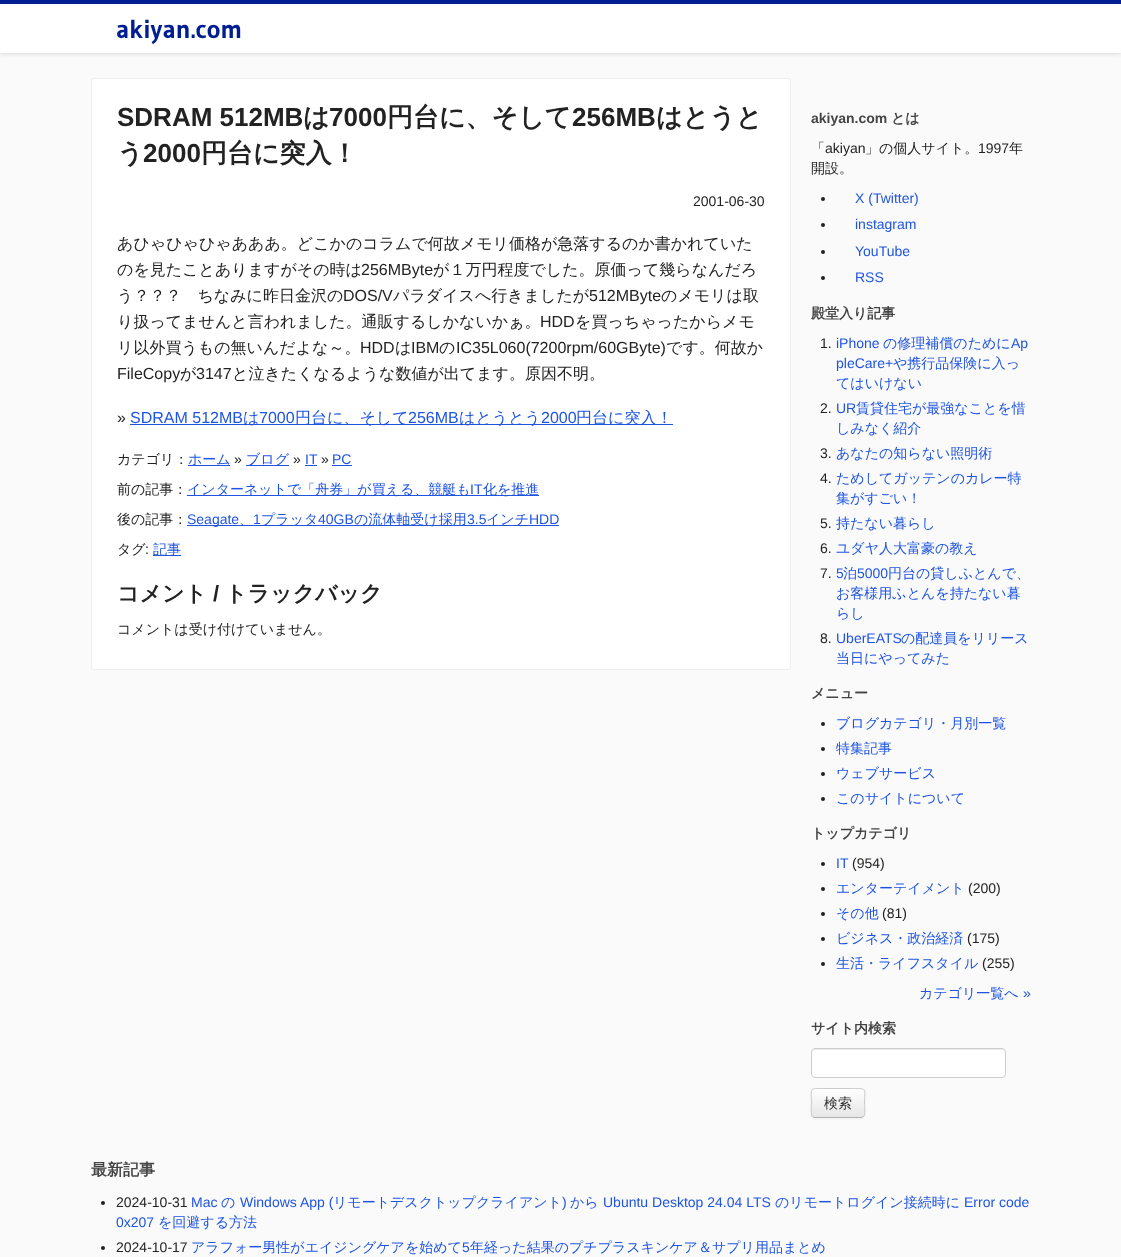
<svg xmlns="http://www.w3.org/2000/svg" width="1121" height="1257">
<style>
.a{font:bold 26px Gudea;fill:#001e92}
.b{font:bold 26px Liberation Sans;fill:#222}
.c{font:bold 26px WenQuanYi Zen Hei;fill:#222}
.d{font:14px Liberation Sans;fill:#222}
.e{font:500 16px WenQuanYi Zen Hei;fill:#222}
.f{font:16px Liberation Sans;fill:#222}
.g{font:16px Liberation Sans;fill:#1f54e0}
.h{font:500 16px WenQuanYi Zen Hei;fill:#1f54e0}
.i{font:500 14px WenQuanYi Zen Hei;fill:#222}
.j{font:500 14px WenQuanYi Zen Hei;fill:#1f54e0}
.k{font:14px Liberation Sans;fill:#1f54e0}
.l{font:bold 22px WenQuanYi Zen Hei;fill:#222}
.m{font:bold 22px Liberation Sans;fill:#222}
.n{font:bold 14px Liberation Sans;fill:#444}
.o{font:bold 14px WenQuanYi Zen Hei;fill:#444}
.p{font:500 14px WenQuanYi Zen Hei;fill:#333}
.q{font:bold 16px WenQuanYi Zen Hei;fill:#444}
</style>
<defs>
<clipPath id="clip1"><rect x="811" y="1088" width="54" height="30" rx="4"/></clipPath>
<linearGradient id="g1" gradientUnits="userSpaceOnUse" x1="838" y1="1089" x2="838" y2="1117"><stop offset="0" stop-color="#fff"/><stop offset="1" stop-color="#e6e6e6"/></linearGradient>
</defs>
<rect width="100%" height="100%" fill="#fafafa"/>
<path fill="#ccc" filter="blur(2.5px)" d="M0 0h1121v53H0z"/>
<path fill="#fff" d="M0 4h1121v49H0z"/>
<path fill="#001e92" d="M0 0h1121v4H0z"/>
<rect fill="#fff" stroke="#eee" x="91.5" y="78.5" width="699" height="591" rx="2.5"/>
<path fill="#1f54e0" d="M130 424h543v1H130z"/>
<path fill="#1f54e0" d="M188 465h42v1H188z"/>
<path fill="#1f54e0" d="M246 465h43v1H246z"/>
<path fill="#1f54e0" d="M305 465h12v1H305z"/>
<path fill="#1f54e0" d="M332 465h20v1H332z"/>
<path fill="#1f54e0" d="M187 495h352v1H187z"/>
<path fill="#1f54e0" d="M187 525h372v1H187z"/>
<path fill="#1f54e0" d="M153 555h28v1H153z"/>
<circle fill="#222" cx="823" cy="199" r="2"/>
<circle fill="#222" cx="823" cy="225" r="2"/>
<circle fill="#222" cx="823" cy="252" r="2"/>
<circle fill="#222" cx="823" cy="278" r="2"/>
<circle fill="#222" cx="823" cy="724" r="2"/>
<circle fill="#222" cx="823" cy="749" r="2"/>
<circle fill="#222" cx="823" cy="774" r="2"/>
<circle fill="#222" cx="823" cy="799" r="2"/>
<circle fill="#222" cx="823" cy="864" r="2"/>
<circle fill="#222" cx="823" cy="889" r="2"/>
<circle fill="#222" cx="823" cy="914" r="2"/>
<circle fill="#222" cx="823" cy="939" r="2"/>
<circle fill="#222" cx="823" cy="964" r="2"/>
<rect fill="#fff" x="811" y="1048" width="195" height="30" rx="4"/>
<path fill="#ececec" d="M815 1050h187c2 0 3 1 3 3c0-2-1-4-3-4h-187c-2 0-3 2-3 4c0-2 1-3 3-3z"/>
<rect fill="none" stroke="#ccc" x="811.5" y="1048.5" width="194" height="29" rx="3.5"/>
<rect fill="#0000000d" filter="blur(1px)" x="811" y="1089" width="54" height="30" rx="4"/>
<rect fill="#f5f5f5" x="811" y="1088" width="54" height="30" rx="4"/>
<g clip-path="url(#clip1)">
<path fill="url(#g1)" d="M811 1089h54v28H811z"/>
</g>
<path fill="#fff" d="M815 1090h46c2 0 3 1 3 3c0-6-6-4-11-4h-30c-5 0-11-2-11 4c0-2 1-3 3-3z"/>
<path fill="none" stroke="#b3b3b3" d="M863.5 1116.5c-.5 .5-1.5 1-2.5 1h-46c-1 0-2-.5-2.5-1"/>
<path fill="none" stroke="#ccc" d="M812.5 1116.5c-2-2-1-10.5-1-13.5c0-14.5-3-14.5 11-14.5h31c14 0 11 0 11 14.5c0 3 1 11.5-1 13.5"/>
<circle fill="#222" cx="103" cy="1203" r="2"/>
<circle fill="#222" cx="103" cy="1248" r="2"/>
<text class="a" x="116" y="38">akiyan.com</text>
<text class="b" x="117" y="126">SDRAM 512MB</text>
<text class="c" x="303" y="126">は</text>
<text class="b" x="329" y="126">7000</text>
<text class="c" x="387" y="126">円台に、そして</text>
<text class="b" x="572" y="126">256MB</text>
<text class="c" x="656" y="126">はとうと</text>
<text class="c" x="117" y="162">う</text>
<text class="b" x="143" y="162">2000</text>
<text class="c" x="201" y="162">円台に突入！</text>
<text class="d" x="693" y="206">2001-06-30</text>
<text class="e" x="117" y="249">あひゃひゃひゃあああ。どこかのコラムで何故メモリ価格が急落するのか書かれていた</text>
<text class="e" x="117" y="275">のを見たことありますがその時は</text>
<text class="f" x="361" y="275">256MByte</text>
<text class="e" x="433" y="275">が１万円程度でした。原価って幾らなんだろ</text>
<text class="e" x="117" y="301">う？？？　ちなみに昨日金沢の</text>
<text class="f" x="343" y="301">DOS/V</text>
<text class="e" x="393" y="301">パラダイスへ行きましたが</text>
<text class="f" x="589" y="301">512MByte</text>
<text class="e" x="661" y="301">のメモリは取</text>
<text class="e" x="117" y="327">り扱ってませんと言われました。通販するしかないかぁ。</text>
<text class="f" x="540" y="327">HDD</text>
<text class="e" x="575" y="327">を買っちゃったからメモ</text>
<text class="e" x="117" y="353">リ以外買うもの無いんだよな～。</text>
<text class="f" x="360" y="353">HDD</text>
<text class="e" x="395" y="353">は</text>
<text class="f" x="411" y="353">IBM</text>
<text class="e" x="439" y="353">の</text>
<text class="f" x="456" y="353">IC35L060(7200rpm/60GByte)</text>
<text class="e" x="666" y="353">です。何故か</text>
<text class="f" x="117" y="379">FileCopy</text>
<text class="e" x="180" y="379">が</text>
<text class="f" x="196" y="379">3147</text>
<text class="e" x="232" y="379">と泣きたくなるような数値が出てます。原因不明。</text>
<text class="f" x="117" y="423">»</text>
<text class="g" x="130" y="423">SDRAM 512MB</text>
<text class="h" x="243" y="423">は</text>
<text class="g" x="259" y="423">7000</text>
<text class="h" x="295" y="423">円台に、そして</text>
<text class="g" x="408" y="423">256MB</text>
<text class="h" x="459" y="423">はとうとう</text>
<text class="g" x="541" y="423">2000</text>
<text class="h" x="576" y="423">円台に突入！</text>
<text class="i" x="117" y="464">カテゴリ：</text>
<text class="j" x="188" y="464">ホーム</text>
<text class="d" x="234" y="464">»</text>
<text class="j" x="246" y="464">ブログ</text>
<text class="d" x="293" y="464">»</text>
<text class="k" x="305" y="464">IT</text>
<text class="d" x="321" y="464">»</text>
<text class="k" x="332" y="464">PC</text>
<text class="i" x="117" y="494">前の記事：</text>
<text class="j" x="187" y="494">インターネットで「舟券」が買える、競艇も</text>
<text class="k" x="470" y="494">IT</text>
<text class="j" x="483" y="494">化を推進</text>
<text class="i" x="117" y="524">後の記事：</text>
<text class="k" x="187" y="524">Seagate</text>
<text class="j" x="239" y="524">、</text>
<text class="k" x="253" y="524">1</text>
<text class="j" x="261" y="524">プラッタ</text>
<text class="k" x="318" y="524">40GB</text>
<text class="j" x="354" y="524">の流体軸受け採用</text>
<text class="k" x="467" y="524">3.5</text>
<text class="j" x="486" y="524">インチ</text>
<text class="k" x="529" y="524">HDD</text>
<text class="i" x="117" y="554">タグ</text>
<text class="d" x="145" y="554">:</text>
<text class="j" x="153" y="554">記事</text>
<text class="l" x="117" y="601">コメント</text>
<text class="m" x="213" y="601">/</text>
<text class="l" x="225" y="601">トラックバック</text>
<text class="i" x="117" y="634">コメントは受け付けていません。</text>
<text class="n" x="811" y="123">akiyan.com</text>
<text class="o" x="891" y="123">とは</text>
<text class="i" x="811" y="153">「</text>
<text class="d" x="825" y="153">akiyan</text>
<text class="i" x="865" y="153">」の個人サイト。</text>
<text class="d" x="978" y="153">1997</text>
<text class="i" x="1009" y="153">年</text>
<text class="i" x="811" y="173">開設。</text>
<text class="k" x="855" y="203">X (Twitter)</text>
<text class="k" x="855" y="229">instagram</text>
<text class="k" x="855" y="256">YouTube</text>
<text class="k" x="855" y="282">RSS</text>
<text class="o" x="811" y="318">殿堂入り記事</text>
<text class="d" x="820" y="348">1.</text>
<text class="k" x="836" y="348">iPhone</text>
<text class="j" x="883" y="348">の修理補償のために</text>
<text class="k" x="1011" y="348">Ap</text>
<text class="k" x="836" y="368">pleCare+</text>
<text class="j" x="893" y="368">や携行品保険に入っ</text>
<text class="j" x="836" y="388">てはいけない</text>
<text class="d" x="820" y="413">2.</text>
<text class="k" x="836" y="413">UR</text>
<text class="j" x="856" y="413">賃貸住宅が最強なことを惜</text>
<text class="j" x="836" y="433">しみなく紹介</text>
<text class="d" x="820" y="458">3.</text>
<text class="j" x="836" y="458">あなたの知らない照明術</text>
<text class="d" x="820" y="483">4.</text>
<text class="j" x="836" y="483">ためしてガッテンのカレー特</text>
<text class="j" x="836" y="503">集がすごい！</text>
<text class="d" x="820" y="528">5.</text>
<text class="j" x="836" y="528">持たない暮らし</text>
<text class="d" x="820" y="553">6.</text>
<text class="j" x="836" y="553">ユダヤ人大富豪の教え</text>
<text class="d" x="820" y="578">7.</text>
<text class="k" x="836" y="578">5</text>
<text class="j" x="843" y="578">泊</text>
<text class="k" x="857" y="578">5000</text>
<text class="j" x="888" y="578">円台の貸しふとんで、</text>
<text class="j" x="836" y="598">お客様用ふとんを持たない暮</text>
<text class="j" x="836" y="618">らし</text>
<text class="d" x="820" y="643">8.</text>
<text class="k" x="836" y="643">UberEATS</text>
<text class="j" x="901" y="643">の配達員をリリース</text>
<text class="j" x="836" y="663">当日にやってみた</text>
<text class="o" x="811" y="698">メニュー</text>
<text class="j" x="836" y="728">ブログカテゴリ・月別一覧</text>
<text class="j" x="836" y="753">特集記事</text>
<text class="j" x="836" y="778">ウェブサービス</text>
<text class="j" x="836" y="803">このサイトについて</text>
<text class="o" x="811" y="838">トップカテゴリ</text>
<text class="k" x="836" y="868">IT</text>
<text class="d" x="852" y="868">(954)</text>
<text class="j" x="836" y="893">エンターテイメント</text>
<text class="d" x="968" y="893">(200)</text>
<text class="j" x="836" y="918">その他</text>
<text class="d" x="882" y="918">(81)</text>
<text class="j" x="836" y="943">ビジネス・政治経済</text>
<text class="d" x="967" y="943">(175)</text>
<text class="j" x="836" y="968">生活・ライフスタイル</text>
<text class="d" x="982" y="968">(255)</text>
<text class="j" x="919" y="998">カテゴリ一覧へ</text>
<text class="k" x="1023" y="998">»</text>
<text class="o" x="811" y="1033">サイト内検索</text>
<text class="p" x="824" y="1108">検索</text>
<text class="q" x="91" y="1175">最新記事</text>
<text class="d" x="116" y="1207">2024-10-31</text>
<text class="k" x="191" y="1207">Mac</text>
<text class="j" x="221" y="1207">の</text>
<text class="k" x="240" y="1207">Windows App (</text>
<text class="j" x="333" y="1207">リモートデスクトップクライアント</text>
<text class="k" x="562" y="1207">)</text>
<text class="j" x="570" y="1207">から</text>
<text class="k" x="603" y="1207">Ubuntu Desktop 24.04 LTS</text>
<text class="j" x="775" y="1207">のリモートログイン接続時に</text>
<text class="k" x="964" y="1207">Error code</text>
<text class="k" x="116" y="1227">0x207</text>
<text class="j" x="158" y="1227">を回避する方法</text>
<text class="d" x="116" y="1252">2024-10-17</text>
<text class="j" x="191" y="1252">アラフォー男性がエイジングケアを始めて</text>
<text class="k" x="462" y="1252">5</text>
<text class="j" x="470" y="1252">年経った結果のプチプラスキンケア＆サプリ用品まとめ</text>
</svg>
